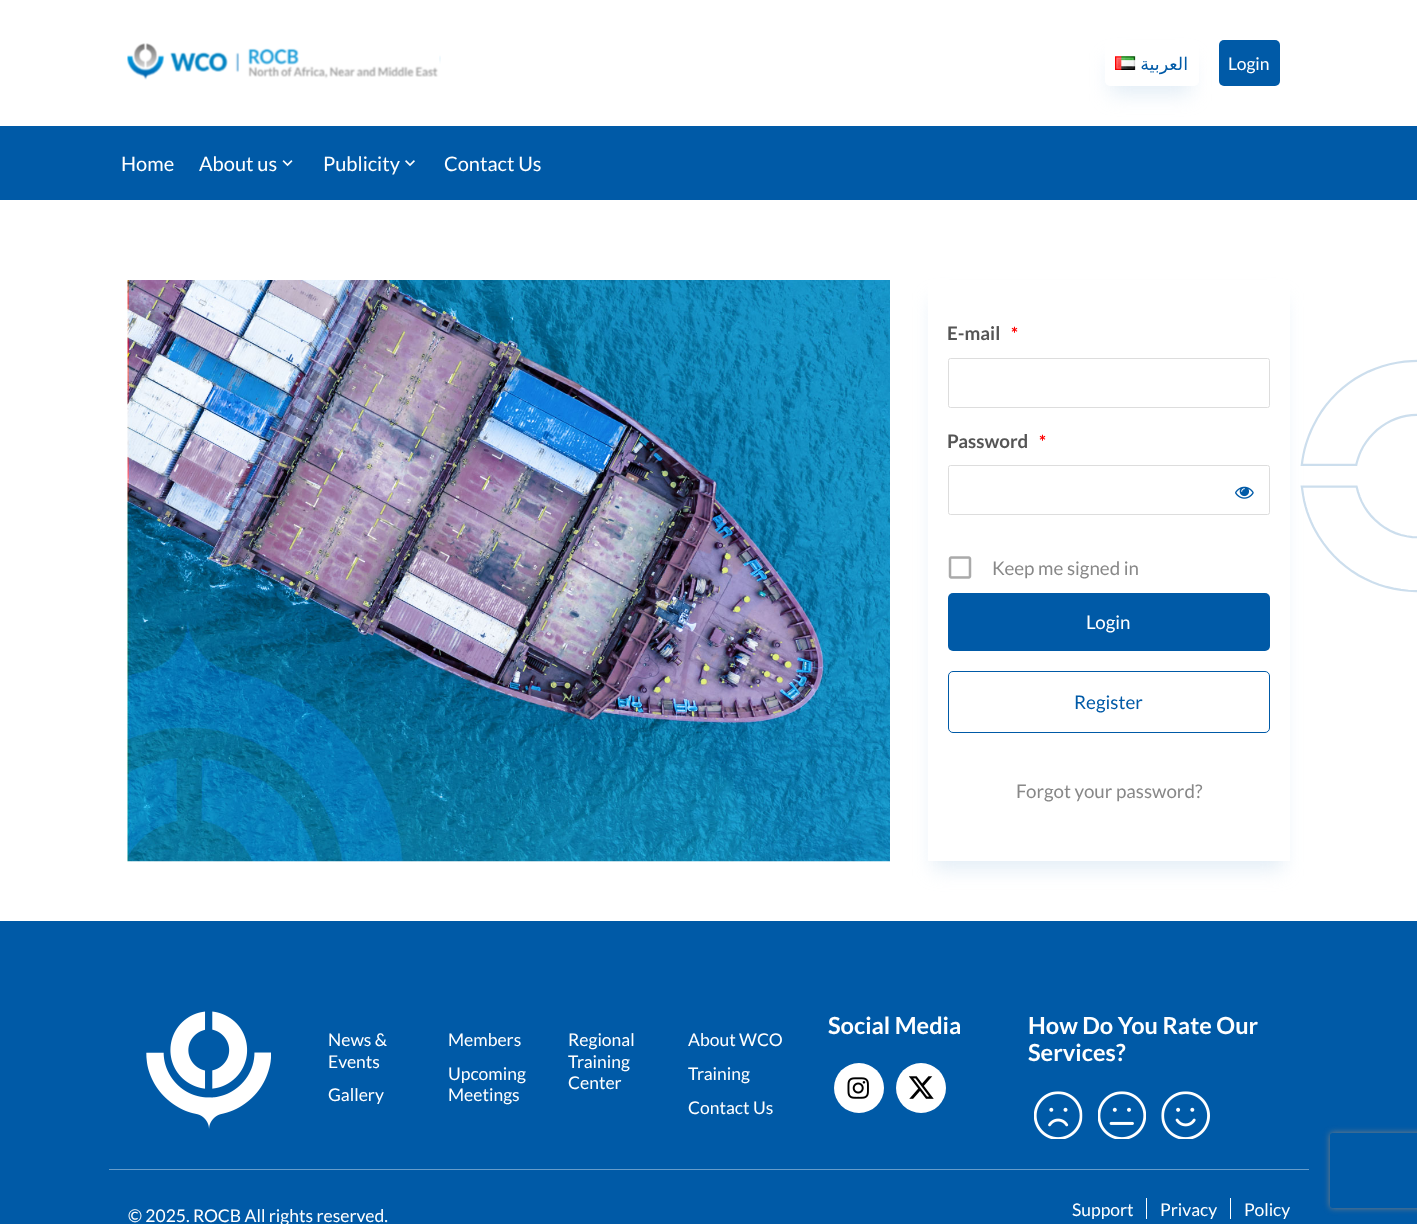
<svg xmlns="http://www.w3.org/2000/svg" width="1417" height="1224">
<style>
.a{font:17.5px DejaVu Sans;direction:rtl;fill:#005aa7}
.b{font:17.5px Lato;fill:#fff}
.c{font:20px Lato;fill:#fff}
.d{font:bold 18.75px Lato;fill:#555}
.e{font:bold 17.5px Lato;fill:#f00}
.f{font:18.75px Lato;fill:#888}
.g{font:18.75px Lato;fill:#fff}
.h{font:18.75px Lato;fill:#005aa7}
.i{font:bold 23.5px Lato;fill:#fff}
</style>
<defs>
<clipPath id="clip1"><path d="M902 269h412v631h-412zm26 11h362v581h-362z" clip-rule="evenodd"/></clipPath>
<clipPath id="clip2"><path d="M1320 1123h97v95h-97zm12.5 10h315c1.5 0 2.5 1 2.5 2.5v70c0 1.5-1 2.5-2.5 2.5h-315c-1.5 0-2.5-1-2.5-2.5v-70c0-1.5 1-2.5 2.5-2.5z" clip-rule="evenodd"/></clipPath>
</defs>
<rect width="100%" height="100%" fill="#fff"/>
<image href="1.png" x="127" y="43" width="314" height="37"/>
<path fill="#c5dbed80" filter="blur(10px)" d="M1110 60h81v34H1110z"/>
<rect fill="#fff" x="1105" y="40" width="94" height="46" rx="5"/>
<image href="2.png" x="1115" y="56" width="21" height="14"/>
<rect fill="#005aa7" x="1219" y="40" width="61" height="46" rx="5"/>
<path fill="#005aa7" d="M0 126h1417v74H0z"/>
<image href="3.png" x="282" y="160" width="11" height="7"/>
<image href="4.png" x="405" y="160" width="10" height="7"/>
<image href="5.png" x="1300" y="359" width="117" height="234"/>
<image href="6.png" x="127" y="280" width="763" height="582"/>
<g clip-path="url(#clip1)">
<path fill="#c5dbed80" filter="blur(10px)" d="M933 300h350v569H933z"/>
</g>
<rect fill="none" stroke="#ddd" x="948.5" y="358.5" width="321" height="49" rx="2"/>
<rect fill="none" stroke="#ddd" x="948.5" y="465.5" width="321" height="49" rx="2"/>
<image href="7.png" x="1235" y="486" width="19" height="13"/>
<image href="8.png" x="948" y="556" width="24" height="23"/>
<rect fill="#005aa7" x="948" y="593" width="322" height="58" rx="5"/>
<rect fill="none" stroke="#005aa7" x="948.5" y="671.5" width="321" height="61" rx="4.5"/>
<path fill="#005aa7" d="M0 921h1417v303H0z"/>
<path fill="#669cca" d="M109 1169h1200v1H109z"/>
<image href="9.png" x="146" y="1011" width="125" height="118"/>
<circle fill="#fff" cx="859" cy="1088" r="25"/>
<image href="10.png" x="847" y="1077" width="22" height="22"/>
<circle fill="#fff" cx="921" cy="1088" r="25"/>
<image href="11.png" x="909" y="1076" width="25" height="23"/>
<image href="12.png" x="1034" y="1091" width="49" height="48"/>
<image href="13.png" x="1098" y="1091" width="48" height="48"/>
<image href="14.png" x="1161" y="1091" width="49" height="48"/>
<path fill="#fff" d="M1146 1198h1v21H1146z"/>
<path fill="#fff" d="M1230 1198h1v21H1230z"/>
<g clip-path="url(#clip2)">
<rect fill="#808080" filter="blur(3px)" x="1330" y="1133" width="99" height="75" rx="2.5"/>
</g>
<text class="a" x="1188" y="70">العربية</text>
<text class="b" x="1228" y="70">Login</text>
<text class="c" x="121" y="171">Home</text>
<text class="c" x="199" y="171">About us</text>
<text class="c" x="323" y="171">Publicity</text>
<text class="c" x="444" y="171">Contact Us</text>
<text class="d" x="947" y="340">E-mail</text>
<text class="e" x="1011" y="340">*</text>
<text class="d" x="947" y="448">Password</text>
<text class="e" x="1039" y="448">*</text>
<text class="f" x="992" y="575">Keep me signed in</text>
<text class="g" x="1086" y="629">Login</text>
<text class="h" x="1074" y="709">Register</text>
<text class="f" x="1016" y="798">Forgot your password?</text>
<text class="b" x="328" y="1046">News &amp;</text>
<text class="b" x="328" y="1068">Events</text>
<text class="b" x="448" y="1046">Members</text>
<text class="b" x="568" y="1046">Regional</text>
<text class="b" x="568" y="1068">Training</text>
<text class="b" x="568" y="1089">Center</text>
<text class="b" x="688" y="1046">About WCO</text>
<text class="b" x="448" y="1080">Upcoming</text>
<text class="b" x="448" y="1101">Meetings</text>
<text class="b" x="688" y="1080">Training</text>
<text class="b" x="328" y="1101">Gallery</text>
<text class="b" x="688" y="1114">Contact Us</text>
<text class="i" x="828" y="1034">Social Media</text>
<text class="i" x="1028" y="1034">How Do You Rate Our</text>
<text class="i" x="1028" y="1061">Services?</text>
<text class="b" x="128" y="1222">© 2025. ROCB All rights reserved.</text>
<text class="b" x="1072" y="1216">Support</text>
<text class="b" x="1160" y="1216">Privacy</text>
<text class="b" x="1244" y="1216">Policy</text>
</svg>
